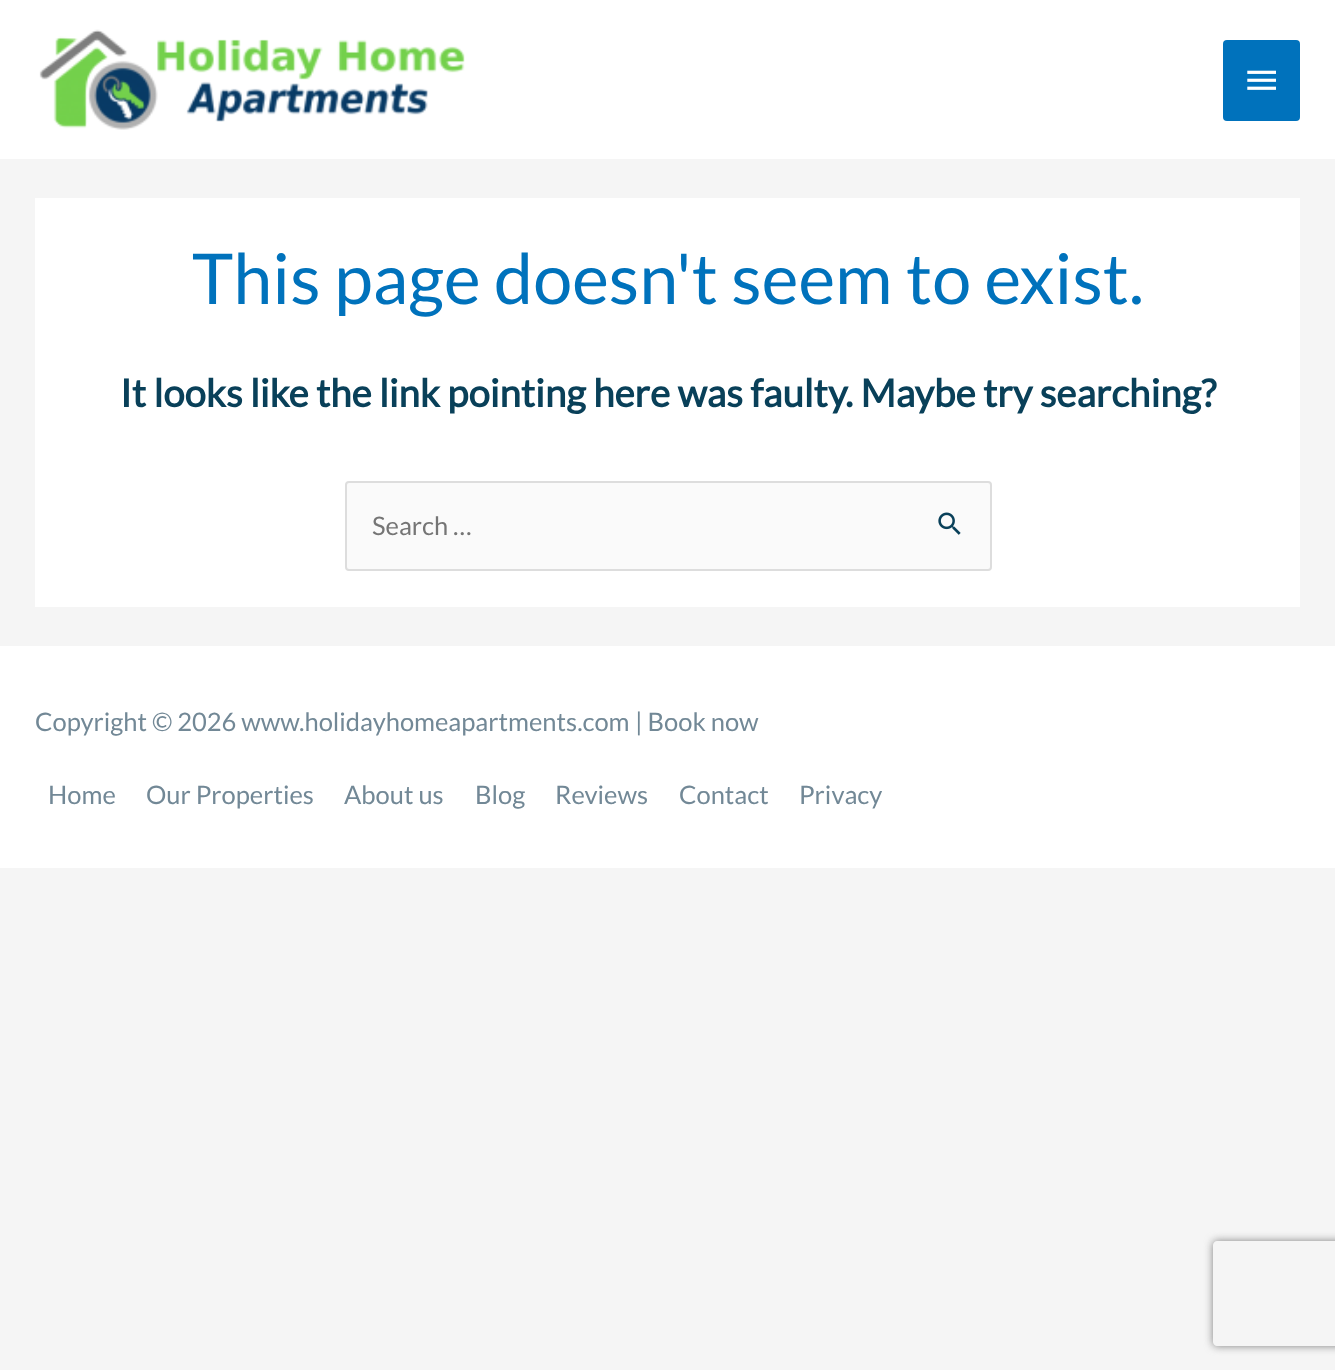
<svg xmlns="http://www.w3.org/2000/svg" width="1335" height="1370">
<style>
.a{font:70px Lato;fill:#0072bc}
.b{font:bold 38.3px Lato;fill:#094059}
.c{font:25.5px Lato;fill:#757575}
.d{font:25.5px Lato;fill:#728896}
</style>
<defs>
<clipPath id="clip1"><path d="M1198 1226h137v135h-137zm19 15h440c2 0 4 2 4 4v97c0 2-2 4-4 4h-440c-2 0-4-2-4-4v-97c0-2 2-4 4-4z" clip-rule="evenodd"/></clipPath>
</defs>
<rect width="100%" height="100%" fill="#f5f5f5"/>
<path fill="#fff" d="M0 0h1335v159H0z"/>
<image href="1.png" x="39" y="29" width="426" height="101"/>
<rect fill="#0072bc" x="1223" y="40" width="77" height="81" rx="4"/>
<image href="2.png" x="1247" y="70" width="29" height="20"/>
<path fill="#fff" d="M35 198h1265v409H35z"/>
<rect fill="#fafafa" stroke="#ddd" stroke-width="2" x="346" y="482" width="645" height="88" rx="3"/>
<image href="3.png" x="938" y="512" width="23" height="23"/>
<path fill="#fff" d="M0 646h1335v222H0z"/>
<g clip-path="url(#clip1)">
<rect fill="#808080" filter="blur(4.5px)" x="1213" y="1241" width="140" height="105" rx="4"/>
</g>
<text class="a" x="192" y="304">This page doesn't seem to exist.</text>
<text class="b" x="120" y="407">It looks like the link pointing here was faulty. Maybe try searching?</text>
<text class="c" x="372" y="535">Search …</text>
<text class="d" x="35" y="731">Copyright © 2026 www.holidayhomeapartments.com</text>
<text class="d" x="635" y="731">| Book now</text>
<text class="d" x="48" y="804">Home</text>
<text class="d" x="146" y="804">Our Properties</text>
<text class="d" x="344" y="804">About us</text>
<text class="d" x="475" y="804">Blog</text>
<text class="d" x="555" y="804">Reviews</text>
<text class="d" x="679" y="804">Contact</text>
<text class="d" x="799" y="804">Privacy</text>
</svg>
